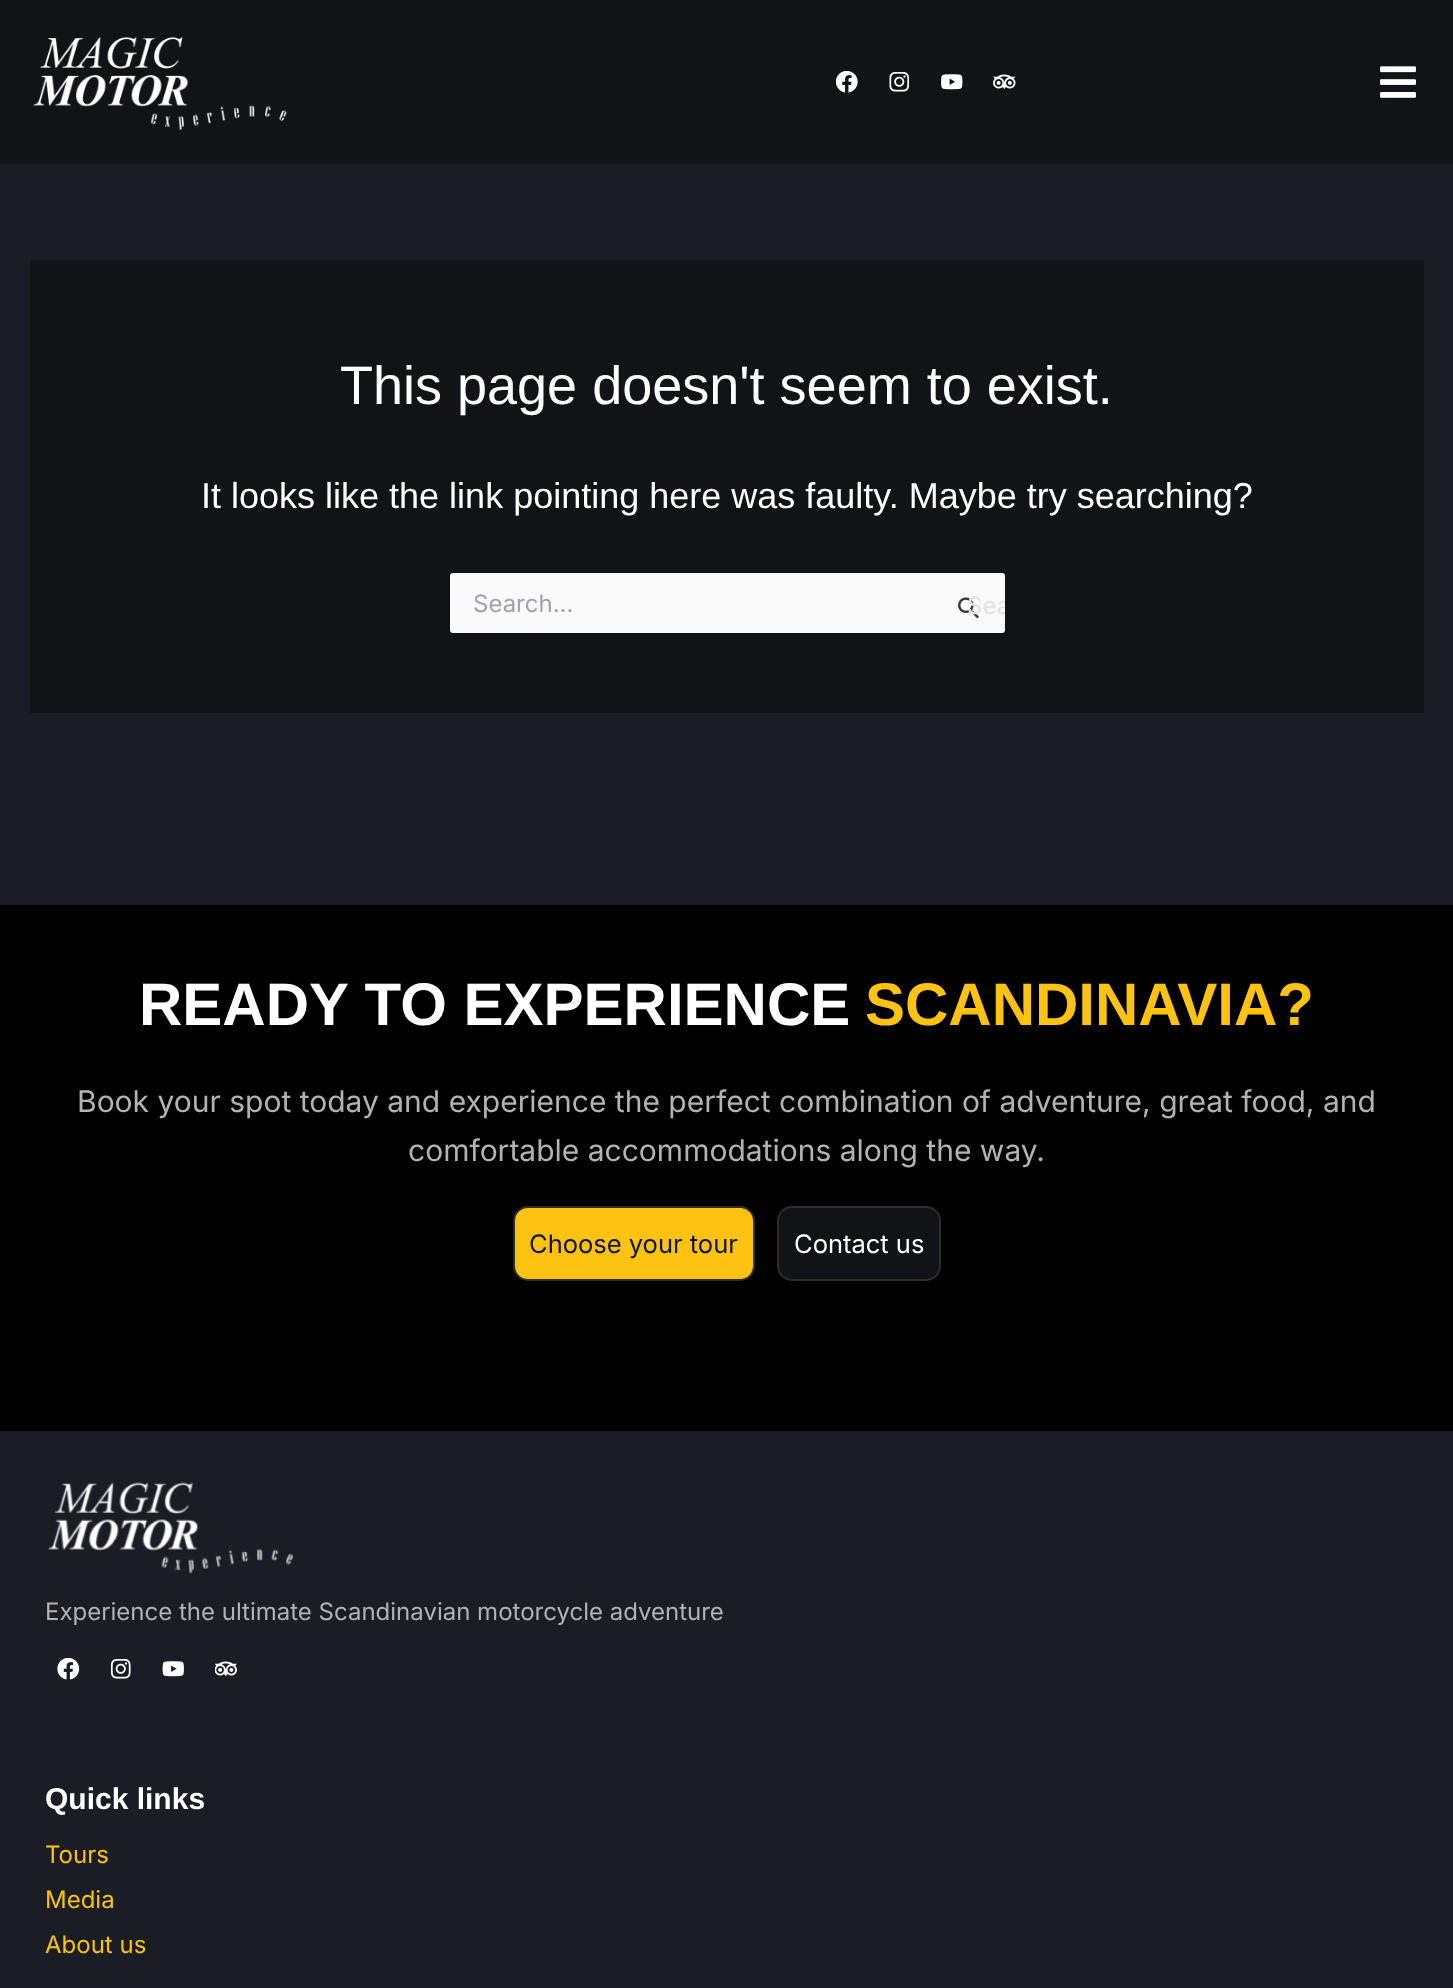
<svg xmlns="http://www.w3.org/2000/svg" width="1453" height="1988">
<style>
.a{font:54px Liberation Sans;fill:#fff}
.b{font:36px Liberation Sans;fill:#fff}
.c{font:24px Inter;fill:#9ca3af}
.d{font:500 24px Inter;fill:#e4e4e4}
.e{font:bold 60px Liberation Sans;fill:#fff}
.f{font:bold 60px Liberation Sans;fill:#fdc212}
.g{font:30px Inter;fill:#b3b3b3}
.h{font:25.5px Inter;fill:#111317}
.i{font:25.5px Inter;fill:#fff}
.j{font:24px Inter;fill:#b3b3b3}
.k{font:bold 30px Liberation Sans;fill:#fff}
.l{font:24px Inter;fill:#fdc212}
</style>
<defs>
<clipPath id="clip1"><rect x="938" y="573" width="67" height="63" rx="3"/></clipPath>
</defs>
<rect width="100%" height="100%" fill="#1a1d24"/>
<path fill="#111317" d="M0 0h1453v164H0z"/>
<image href="1.png" x="33" y="37" width="254" height="93"/>
<image href="2.png" x="836" y="71" width="22" height="22"/>
<image href="3.png" x="889" y="72" width="21" height="20"/>
<image href="4.png" x="941" y="74" width="22" height="16"/>
<image href="5.png" x="993" y="74" width="23" height="15"/>
<image href="6.png" x="1380" y="66" width="36" height="32"/>
<path fill="#111317" d="M30 260h1394v453H30z"/>
<rect fill="#fafafa" stroke="#fafafc" stroke-width="2" x="451" y="574" width="553" height="58" rx="2"/>
<image href="7.png" x="958" y="597" width="21" height="22"/>
<path fill="#010101" d="M0 905h1453v526H0z"/>
<rect fill="#fdc212" stroke="#302e22" stroke-width="2" x="514" y="1207" width="240" height="73" rx="14"/>
<rect fill="#111317" stroke="#302e22" stroke-width="2" x="778" y="1207" width="162" height="73" rx="14"/>
<image href="8.png" x="48" y="1482" width="246" height="92"/>
<image href="9.png" x="57" y="1658" width="23" height="22"/>
<image href="10.png" x="110" y="1659" width="21" height="20"/>
<image href="11.png" x="162" y="1661" width="22" height="16"/>
<image href="12.png" x="215" y="1661" width="22" height="15"/>
<text class="a" x="340" y="404">This page doesn't seem to exist.</text>
<text class="b" x="201" y="508">It looks like the link pointing here was faulty. Maybe try searching?</text>
<text class="c" x="473" y="612">Search...</text>
<g clip-path="url(#clip1)">
<text class="d" x="967" y="614">Sea</text>
</g>
<text class="e" x="139" y="1025">READY TO EXPERIENCE</text>
<text class="f" x="865" y="1025">SCANDINAVIA?</text>
<text class="g" x="77" y="1112">Book your spot today and experience the perfect combination of adventure, great food, and</text>
<text class="g" x="408" y="1161">comfortable accommodations along the way.</text>
<text class="h" x="529" y="1253">Choose your tour</text>
<text class="i" x="794" y="1253">Contact us</text>
<text class="j" x="45" y="1620">Experience the ultimate Scandinavian motorcycle adventure</text>
<text class="k" x="45" y="1809">Quick links</text>
<text class="l" x="45" y="1863">Tours</text>
<text class="l" x="45" y="1908">Media</text>
<text class="l" x="45" y="1953">About us</text>
</svg>
